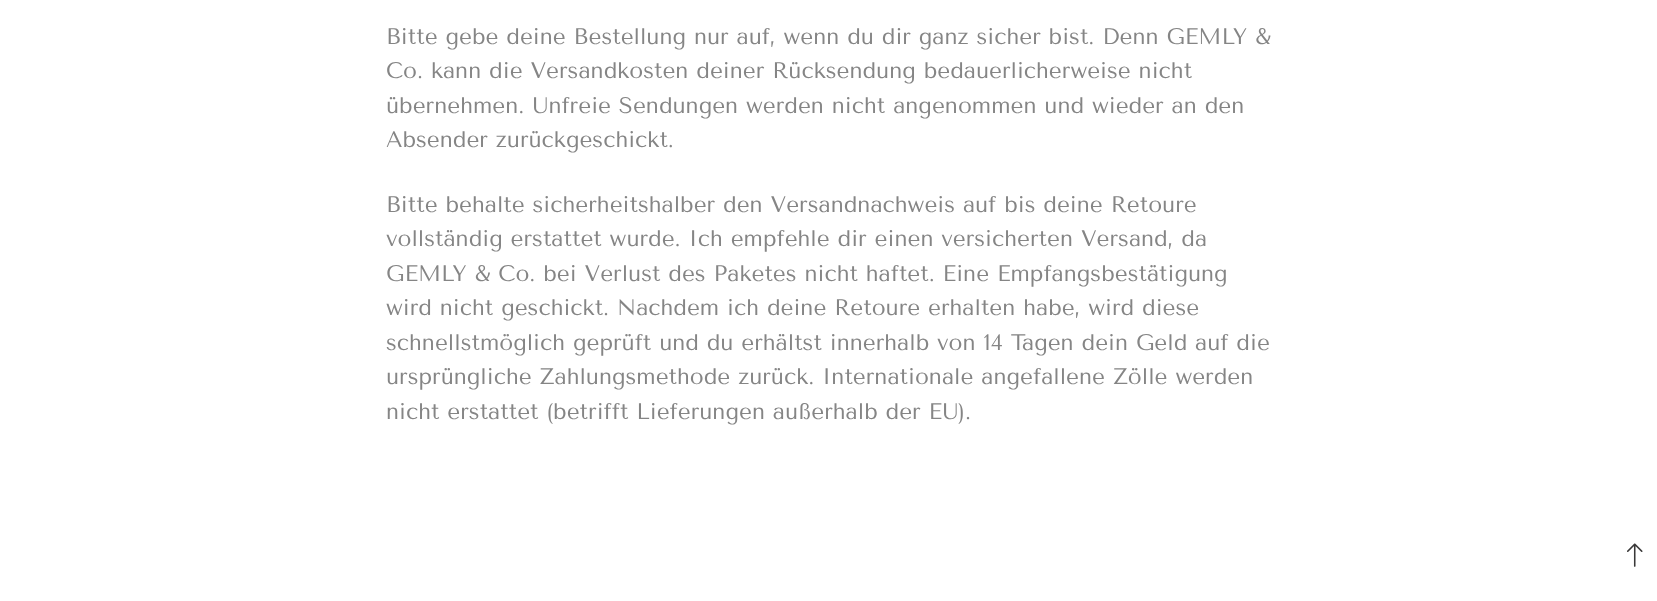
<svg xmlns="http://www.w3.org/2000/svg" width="1657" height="601">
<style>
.a{font:22.5px Tenor Sans;fill:#858585}
</style>
<rect width="100%" height="100%" fill="#fff"/>
<image href="1.png" x="1627" y="543" width="16" height="24"/>
<text class="a" x="386" y="44">Bitte gebe deine Bestellung nur auf, wenn du dir ganz sicher bist. Denn GEMLY &amp;</text>
<text class="a" x="386" y="78">Co. kann die Versandkosten deiner Rücksendung bedauerlicherweise nicht</text>
<text class="a" x="386" y="113">übernehmen. Unfreie Sendungen werden nicht angenommen und wieder an den</text>
<text class="a" x="386" y="147">Absender zurückgeschickt.</text>
<text class="a" x="386" y="212">Bitte behalte sicherheitshalber den Versandnachweis auf bis deine Retoure</text>
<text class="a" x="386" y="246">vollständig erstattet wurde. Ich empfehle dir einen versicherten Versand, da</text>
<text class="a" x="386" y="281">GEMLY &amp; Co. bei Verlust des Paketes nicht haftet. Eine Empfangsbestätigung</text>
<text class="a" x="386" y="315">wird nicht geschickt. Nachdem ich deine Retoure erhalten habe, wird diese</text>
<text class="a" x="386" y="350">schnellstmöglich geprüft und du erhältst innerhalb von 14 Tagen dein Geld auf die</text>
<text class="a" x="386" y="384">ursprüngliche Zahlungsmethode zurück. Internationale angefallene Zölle werden</text>
<text class="a" x="386" y="419">nicht erstattet (betrifft Lieferungen außerhalb der EU).</text>
</svg>
